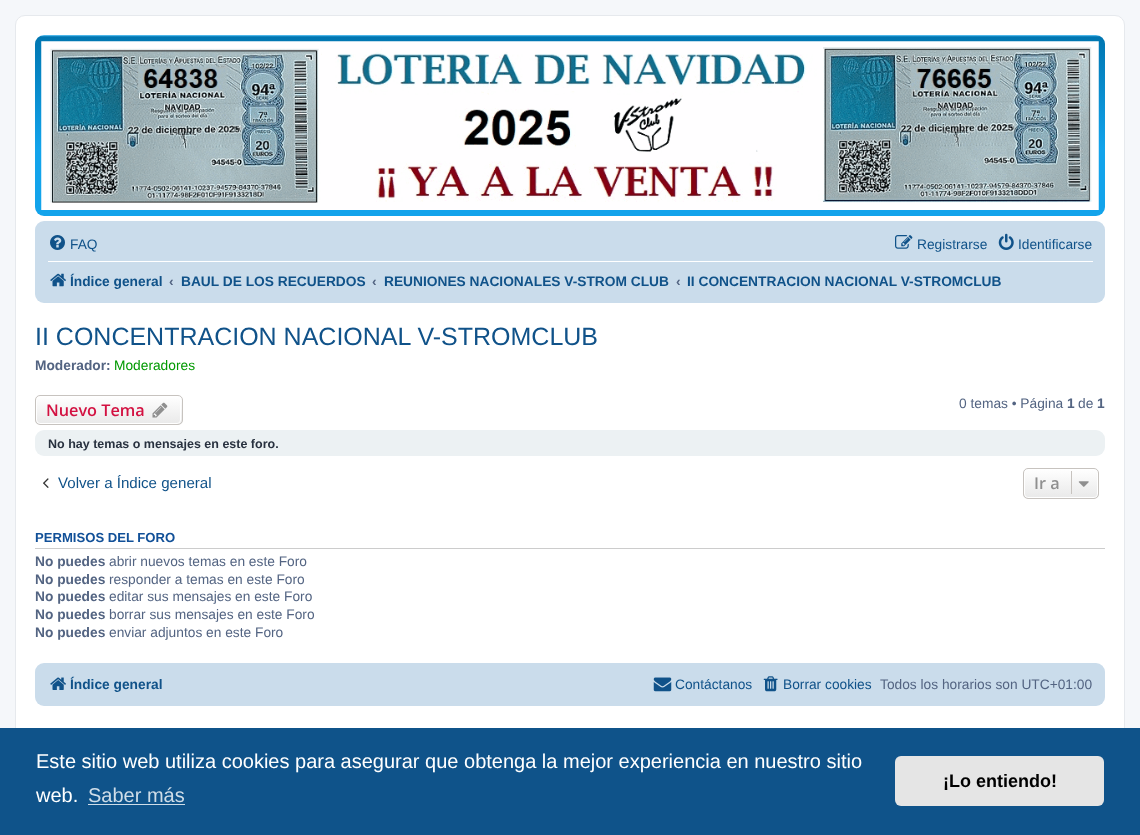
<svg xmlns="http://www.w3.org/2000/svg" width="1140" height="835">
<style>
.a{font:13.75px Liberation Sans;fill:#105289}
.b{font:bold 13.75px Liberation Sans;fill:#105289}
.c{font:bold 13.75px Liberation Sans;fill:#536482}
.d{font:25px Liberation Sans;fill:#105289}
.e{font:13.75px Liberation Sans;fill:#090}
.f{font:600 16.25px Open Sans;fill:#d31141}
.g{font:13.75px Liberation Sans;fill:#536482}
.h{font:bold 12.5px Liberation Sans;fill:#28313f}
.i{font:15.1px Liberation Sans;fill:#105289}
.j{font:600 16.25px Open Sans;fill:#8f8f8f}
.k{font:bold 13.1px Liberation Sans;fill:#115098}
.l{font:20px Liberation Sans;fill:#fff}
.m{font:20px Liberation Sans;fill:#cfdde8}
.n{font:bold 18px Liberation Sans;fill:#000}
</style>
<defs>
<linearGradient id="g1" gradientUnits="userSpaceOnUse" x1="570" y1="35" x2="570" y2="216"><stop offset="0" stop-color="#6aceff"/><stop offset="0.01" stop-color="#0076b1"/><stop offset="0.63" stop-color="#12a3eb"/><stop offset="1" stop-color="#12a3eb"/></linearGradient>
<clipPath id="clip1"><rect x="35" y="395" width="148" height="30" rx="5"/></clipPath>
<linearGradient id="g2" gradientUnits="userSpaceOnUse" x1="109" y1="396" x2="109" y2="424"><stop offset="0" stop-color="#fff"/><stop offset="1" stop-color="#e9e9e9"/></linearGradient>
<clipPath id="clip2"><rect x="1023" y="468" width="76" height="31" rx="5"/></clipPath>
<linearGradient id="g3" gradientUnits="userSpaceOnUse" x1="1061" y1="469" x2="1061" y2="498"><stop offset="0" stop-color="#fff"/><stop offset="1" stop-color="#e9e9e9"/></linearGradient>
</defs>
<rect width="100%" height="100%" fill="#f5f7fa"/>
<rect fill="#fff" stroke="#e6e9ed" x="15.5" y="15.5" width="1109" height="803" rx="9.5"/>
<rect fill="url(#g1)" x="35" y="35" width="1070" height="181" rx="9"/>
<image href="1.png" x="41" y="41" width="1058" height="169"/>
<rect fill="#cadceb" x="35" y="221" width="1070" height="82" rx="9"/>
<image href="2.png" x="50" y="235" width="15" height="15"/>
<image href="3.png" x="895" y="235" width="18" height="14"/>
<image href="4.png" x="998" y="233" width="16" height="17"/>
<path fill="#fff" d="M48 261h1045v1H48z"/>
<image href="5.png" x="50" y="273" width="16" height="14"/>
<g clip-path="url(#clip1)">
<path fill="url(#g2)" d="M35 396h148v28H35z"/>
</g>
<rect fill="none" stroke="#fff" x="36.5" y="396.5" width="144" height="27" rx="3.5"/>
<rect fill="none" stroke="#c7c3bf" x="35.5" y="395.5" width="147" height="29" rx="4.5"/>
<image href="6.png" x="152" y="402" width="16" height="16"/>
<rect fill="#ecf1f3" x="35" y="430" width="1070" height="26" rx="9"/>
<image href="7.png" x="43" y="478" width="6" height="10"/>
<g clip-path="url(#clip2)">
<path fill="url(#g3)" d="M1023 469h76v29H1023z"/>
</g>
<rect fill="none" stroke="#fff" x="1024.5" y="469.5" width="73" height="28" rx="3.5"/>
<rect fill="none" stroke="#c7c3bf" x="1023.5" y="468.5" width="75" height="30" rx="4.5"/>
<path fill="#c7c3bf" d="M1071 471h1v23H1071z"/>
<image href="8.png" x="1078" y="481" width="11" height="6"/>
<path fill="#ccc" d="M35 548h1070v1H35z"/>
<rect fill="#cadceb" x="35" y="663" width="1070" height="43" rx="9"/>
<image href="9.png" x="50" y="677" width="16" height="13"/>
<image href="10.png" x="653" y="677" width="19" height="15"/>
<image href="11.png" x="763" y="676" width="15" height="16"/>
<path fill="#0f538a" d="M0 728h1140v107H0z"/>
<path fill="#cfdde8" d="M88 804h97v1H88z"/>
<rect fill="#e5e5e5" x="895" y="756" width="209" height="50" rx="6"/>
<text class="a" x="70" y="249">FAQ</text>
<text class="a" x="917" y="249">Registrarse</text>
<text class="a" x="1018" y="249">Identificarse</text>
<text class="b" x="70" y="286">Índice general</text>
<text class="c" x="169" y="286">‹</text>
<text class="b" x="181" y="286">BAUL DE LOS RECUERDOS</text>
<text class="c" x="372" y="286">‹</text>
<text class="b" x="384" y="286">REUNIONES NACIONALES V-STROM CLUB</text>
<text class="c" x="676" y="286">‹</text>
<text class="b" x="687" y="286">II CONCENTRACION NACIONAL V-STROMCLUB</text>
<text class="d" x="35" y="345">II CONCENTRACION NACIONAL V-STROMCLUB</text>
<text class="c" x="35" y="370">Moderador:</text>
<text class="e" x="114" y="370">Moderadores</text>
<text class="f" x="46" y="416">Nuevo Tema</text>
<text class="g" x="959" y="408">0 temas • Página</text>
<text class="c" x="1067" y="408">1</text>
<text class="g" x="1078" y="408">de</text>
<text class="c" x="1097" y="408">1</text>
<text class="h" x="48" y="448">No hay temas o mensajes en este foro.</text>
<text class="i" x="58" y="488">Volver a Índice general</text>
<text class="j" x="1034" y="489">Ir a</text>
<text class="k" x="35" y="542">PERMISOS DEL FORO</text>
<text class="c" x="35" y="566">No puedes</text>
<text class="g" x="109" y="566">abrir nuevos temas en este Foro</text>
<text class="c" x="35" y="584">No puedes</text>
<text class="g" x="109" y="584">responder a temas en este Foro</text>
<text class="c" x="35" y="601">No puedes</text>
<text class="g" x="109" y="601">editar sus mensajes en este Foro</text>
<text class="c" x="35" y="619">No puedes</text>
<text class="g" x="109" y="619">borrar sus mensajes en este Foro</text>
<text class="c" x="35" y="637">No puedes</text>
<text class="g" x="109" y="637">enviar adjuntos en este Foro</text>
<text class="b" x="70" y="689">Índice general</text>
<text class="a" x="675" y="689">Contáctanos</text>
<text class="a" x="783" y="689">Borrar cookies</text>
<text class="g" x="880" y="689">Todos los horarios son UTC+01:00</text>
<text class="l" x="36" y="768">Este sitio web utiliza cookies para asegurar que obtenga la mejor experiencia en nuestro sitio</text>
<text class="l" x="36" y="802">web.</text>
<text class="m" x="88" y="802">Saber más</text>
<text class="n" x="943" y="787">¡Lo entiendo!</text>
</svg>
